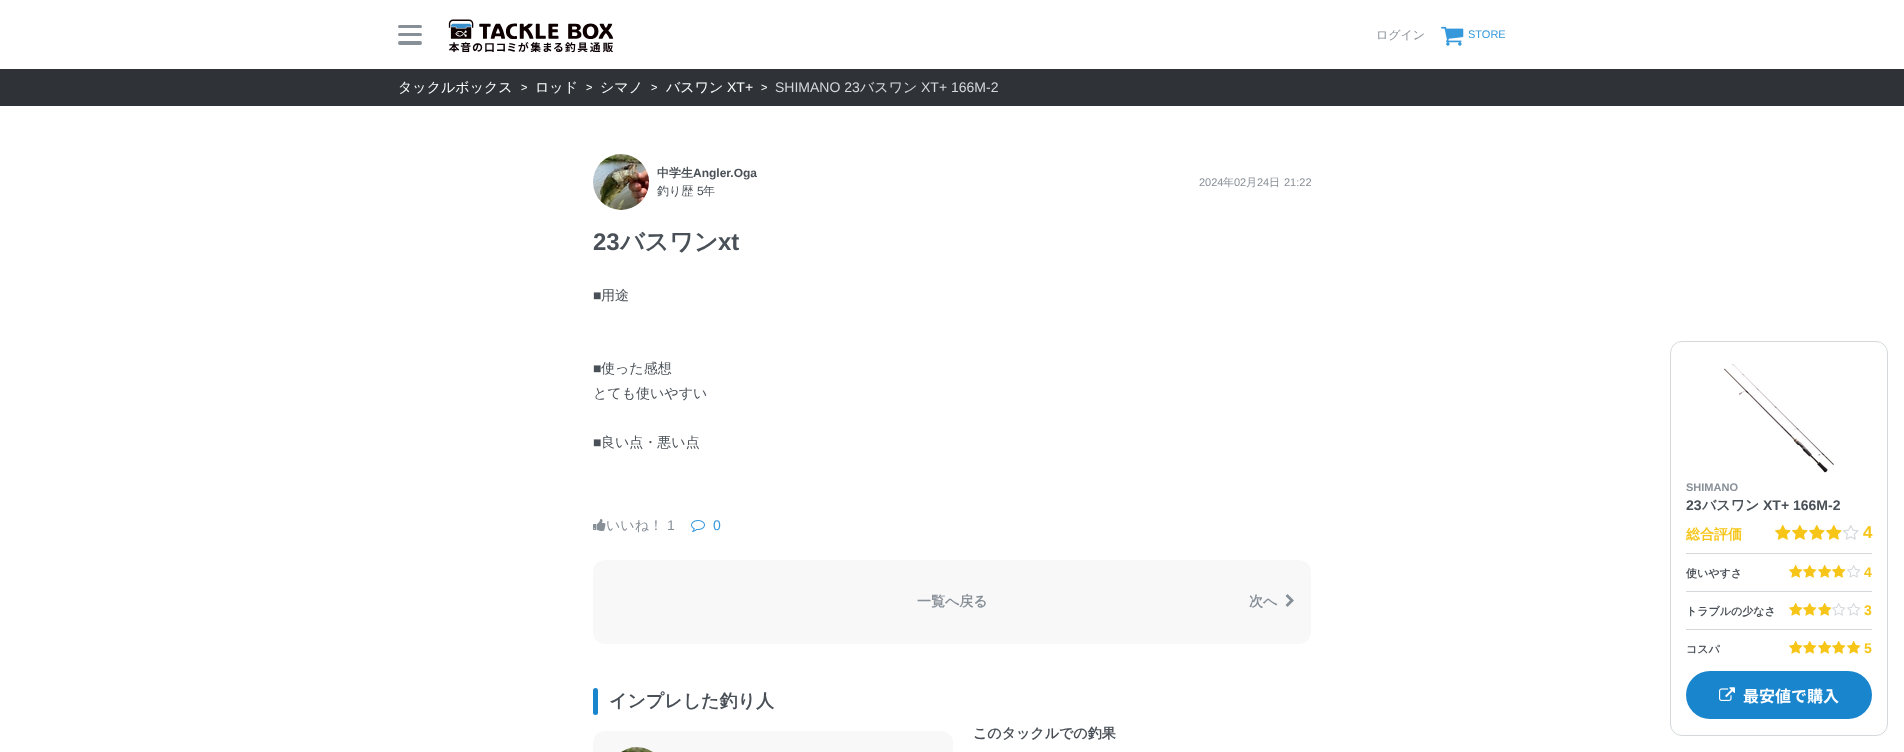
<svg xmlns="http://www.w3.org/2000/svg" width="1904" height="752">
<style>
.a{font:500 12px WenQuanYi Zen Hei;fill:#878f97}
.b{font:11px Liberation Sans;fill:#3498db}
.c{font:500 14px WenQuanYi Zen Hei;fill:#fff}
.d{font:11px Liberation Sans;fill:#fff}
.e{font:14px Liberation Sans;fill:#fff}
.f{font:14px Liberation Sans;fill:#d5d9dc}
.g{font:500 14px WenQuanYi Zen Hei;fill:#d5d9dc}
.h{font:bold 12px WenQuanYi Zen Hei;fill:#495057}
.i{font:bold 12px Liberation Sans;fill:#495057}
.j{font:500 12px WenQuanYi Zen Hei;fill:#495057}
.k{font:12px Liberation Sans;fill:#495057}
.l{font:11px Liberation Sans;fill:#878f97}
.m{font:500 11px WenQuanYi Zen Hei;fill:#878f97}
.n{font:bold 24px Liberation Sans;fill:#495057}
.o{font:bold 24px WenQuanYi Zen Hei;fill:#495057}
.p{font:14px Liberation Sans;fill:#495057}
.q{font:500 14px WenQuanYi Zen Hei;fill:#495057}
.r{font:bold 11px Liberation Sans;fill:#878f97}
.s{font:bold 14px Liberation Sans;fill:#495057}
.t{font:bold 14px WenQuanYi Zen Hei;fill:#495057}
.u{font:bold 14px WenQuanYi Zen Hei;fill:#f6c517}
.v{font:bold 17px Liberation Sans;fill:#f6c517}
.w{font:bold 11px WenQuanYi Zen Hei;fill:#495057}
.x{font:bold 14px Liberation Sans;fill:#f6c517}
.y{font:bold 16px Noto Sans JP;fill:#fff}
.z{font:500 14px WenQuanYi Zen Hei;fill:#878f97}
.a1{font:14px Liberation Sans;fill:#878f97}
.b1{font:14px Liberation Sans;fill:#3498db}
.c1{font:bold 14px WenQuanYi Zen Hei;fill:#878f97}
.d1{font:bold 18px WenQuanYi Zen Hei;fill:#495057}
</style>
<rect width="100%" height="100%" fill="#fff"/>
<rect fill="#878f97" x="398" y="25" width="24" height="3" rx="1.5"/>
<rect fill="#878f97" x="398" y="33" width="24" height="3" rx="1.5"/>
<rect fill="#878f97" x="398" y="41" width="24" height="4" rx="2"/>
<image href="1.png" x="448" y="19" width="166" height="34"/>
<image href="2.png" x="1441" y="26" width="23" height="20"/>
<path fill="#2f3337" d="M0 69h1904v37H0z"/>
<image href="3.png" x="593" y="154" width="56" height="56"/>
<rect fill="none" stroke="#d5d9dc" x="1670.5" y="341.5" width="217" height="394" rx="11.5"/>
<image href="4.png" x="1724" y="363" width="110" height="110"/>
<image href="5.png" x="1775" y="524" width="16" height="16"/>
<image href="5.png" x="1792" y="524" width="16" height="16"/>
<image href="5.png" x="1809" y="524" width="16" height="16"/>
<image href="5.png" x="1826" y="524" width="16" height="16"/>
<image href="6.png" x="1843" y="525" width="16" height="15"/>
<path fill="#d5d9dc" d="M1686 553h186v1H1686z"/>
<image href="7.png" x="1789" y="565" width="14" height="13"/>
<image href="7.png" x="1803" y="565" width="14" height="13"/>
<image href="7.png" x="1818" y="565" width="14" height="13"/>
<image href="7.png" x="1832" y="565" width="14" height="13"/>
<image href="8.png" x="1847" y="565" width="14" height="13"/>
<path fill="#d5d9dc" d="M1686 591h186v1H1686z"/>
<image href="7.png" x="1789" y="603" width="14" height="13"/>
<image href="7.png" x="1803" y="603" width="14" height="13"/>
<image href="7.png" x="1818" y="603" width="14" height="13"/>
<image href="8.png" x="1832" y="603" width="14" height="13"/>
<image href="8.png" x="1847" y="603" width="14" height="13"/>
<path fill="#d5d9dc" d="M1686 629h186v1H1686z"/>
<image href="7.png" x="1789" y="641" width="14" height="13"/>
<image href="7.png" x="1803" y="641" width="14" height="13"/>
<image href="7.png" x="1818" y="641" width="14" height="13"/>
<image href="7.png" x="1832" y="641" width="14" height="13"/>
<image href="7.png" x="1847" y="641" width="14" height="13"/>
<rect fill="#1985cd" x="1686" y="671" width="186" height="48" rx="24"/>
<image href="9.png" x="1719" y="687" width="16" height="14"/>
<image href="10.png" x="593" y="519" width="13" height="12"/>
<image href="11.png" x="691" y="520" width="14" height="12"/>
<rect fill="#f8f8f8" x="593" y="560" width="718" height="84" rx="12"/>
<image href="12.png" x="1285" y="594" width="9" height="13"/>
<rect fill="#1985cd" x="593" y="688" width="5" height="27" rx="2.5"/>
<rect fill="#f8f8f8" x="593" y="731" width="360" height="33" rx="12"/>
<image href="13.png" x="621" y="747" width="32" height="5"/>
<text class="a" x="1376" y="39">ログイン</text>
<text class="b" x="1468" y="38">STORE</text>
<text class="c" x="398" y="92">タックルボックス</text>
<text class="d" x="521" y="91">&gt;</text>
<text class="c" x="535" y="92">ロッド</text>
<text class="d" x="586" y="91">&gt;</text>
<text class="c" x="600" y="92">シマノ</text>
<text class="d" x="651" y="91">&gt;</text>
<text class="c" x="666" y="92">バスワン</text>
<text class="e" x="727" y="92">XT+</text>
<text class="d" x="761" y="91">&gt;</text>
<text class="f" x="775" y="92">SHIMANO 23</text>
<text class="g" x="860" y="92">バスワン</text>
<text class="f" x="921" y="92">XT+ 166M-2</text>
<text class="h" x="657" y="177">中学生</text>
<text class="i" x="693" y="177">Angler.Oga</text>
<text class="j" x="657" y="195">釣り歴</text>
<text class="k" x="697" y="195">5</text>
<text class="j" x="703" y="195">年</text>
<text class="l" x="1199" y="186">2024</text>
<text class="m" x="1223" y="186">年</text>
<text class="l" x="1234" y="186">02</text>
<text class="m" x="1246" y="186">月</text>
<text class="l" x="1257" y="186">24</text>
<text class="m" x="1269" y="186">日</text>
<text class="l" x="1284" y="186">21:22</text>
<text class="n" x="593" y="250">23</text>
<text class="o" x="620" y="250">バスワン</text>
<text class="n" x="718" y="250">xt</text>
<text class="p" x="593" y="300">■</text>
<text class="q" x="601" y="300">用途</text>
<text class="p" x="593" y="373">■</text>
<text class="q" x="601" y="373">使った感想</text>
<text class="q" x="593" y="398">とても使いやすい</text>
<text class="p" x="593" y="447">■</text>
<text class="q" x="601" y="447">良い点・悪い点</text>
<text class="r" x="1686" y="491">SHIMANO</text>
<text class="s" x="1686" y="510">23</text>
<text class="t" x="1702" y="510">バスワン</text>
<text class="s" x="1763" y="510">XT+ 166M-2</text>
<text class="u" x="1686" y="539">総合評価</text>
<text class="v" x="1863" y="538">4</text>
<text class="w" x="1686" y="577">使いやすさ</text>
<text class="x" x="1864" y="577">4</text>
<text class="w" x="1686" y="615">トラブルの少なさ</text>
<text class="x" x="1864" y="615">3</text>
<text class="w" x="1686" y="653">コスパ</text>
<text class="x" x="1864" y="653">5</text>
<text class="y" x="1743" y="702">最安値で購入</text>
<text class="z" x="606" y="530">いいね！</text>
<text class="a1" x="667" y="530">1</text>
<text class="b1" x="713" y="530">0</text>
<text class="c1" x="917" y="606">一覧へ戻る</text>
<text class="c1" x="1249" y="606">次へ</text>
<text class="d1" x="609" y="707">インプレした釣り人</text>
<text class="t" x="973" y="738">このタックルでの釣果</text>
</svg>
